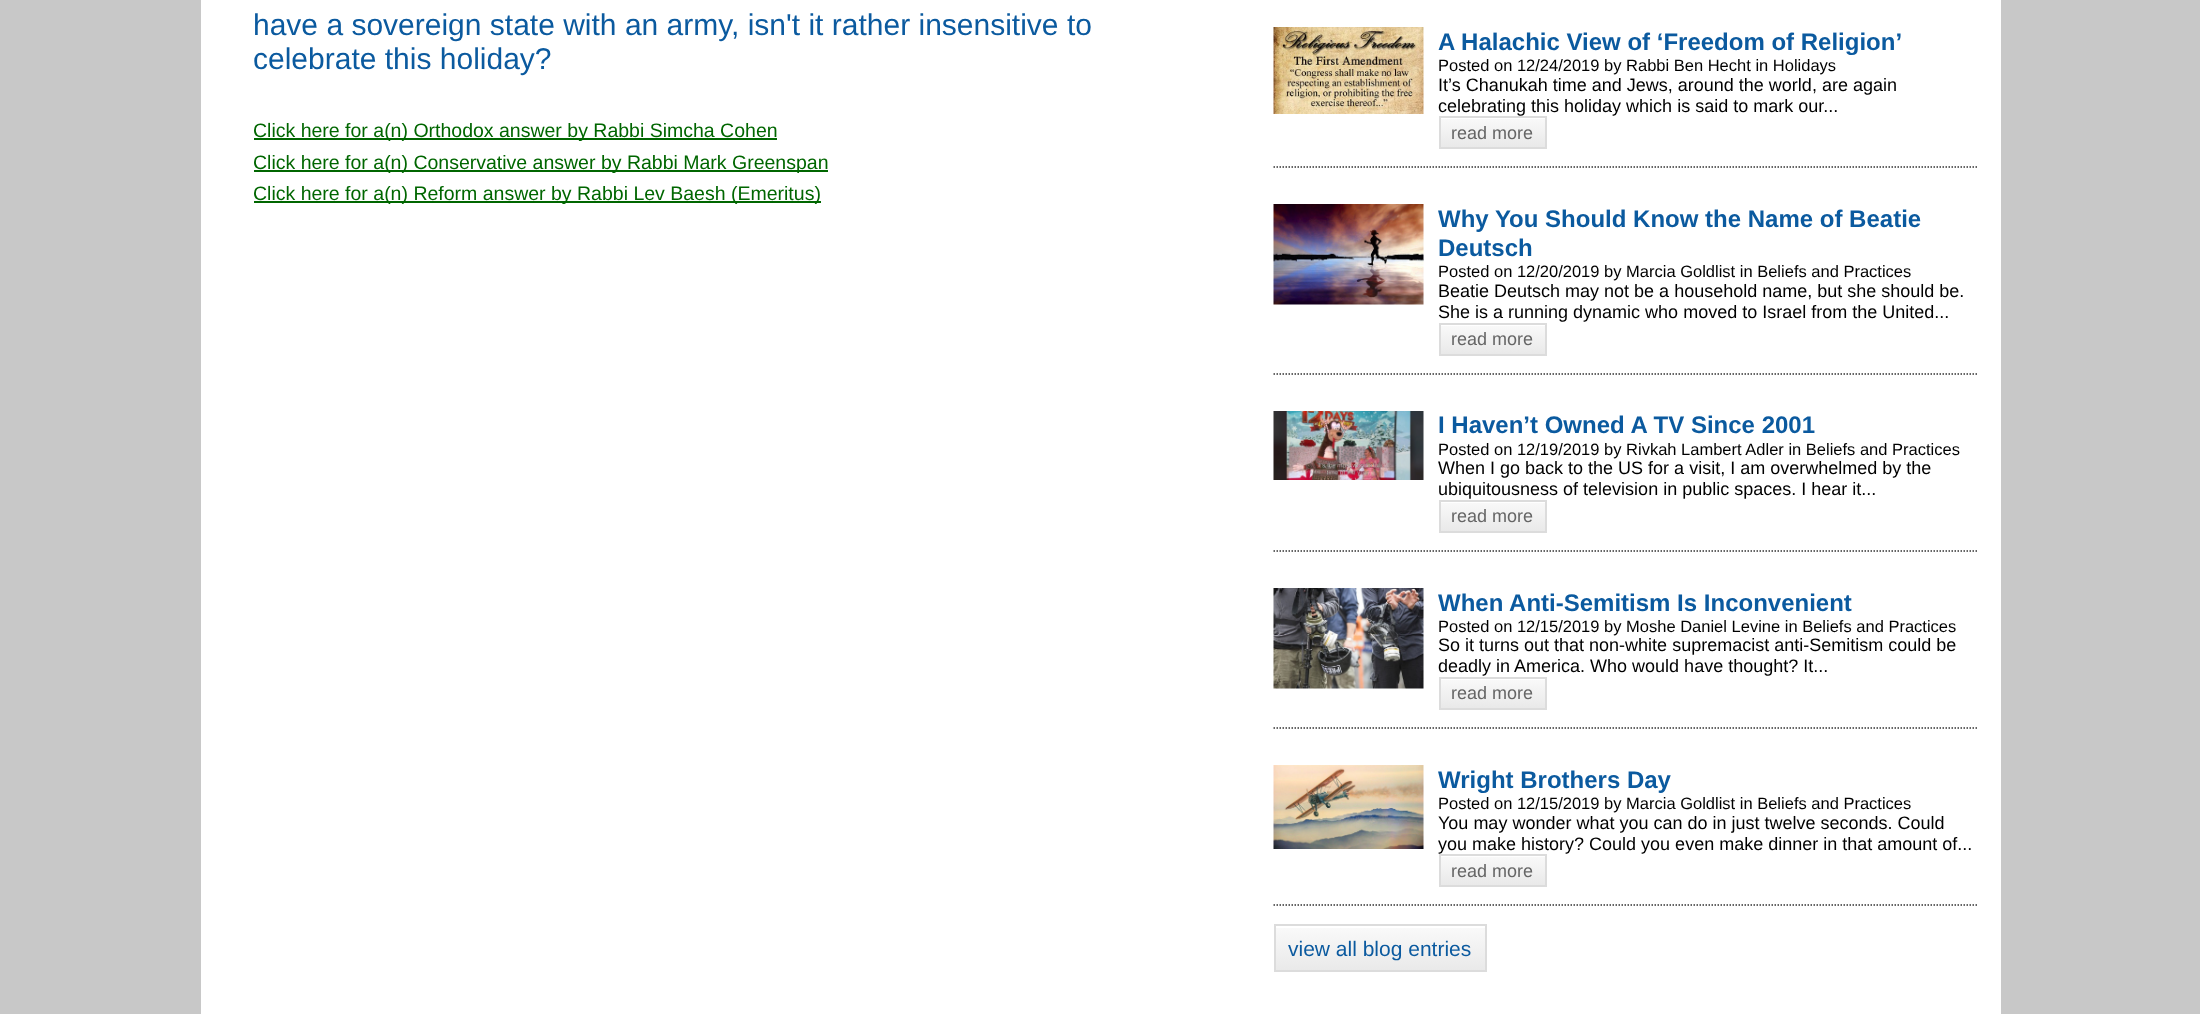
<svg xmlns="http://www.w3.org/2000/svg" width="2200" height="1014">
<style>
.a{font:30px Liberation Sans;fill:#0b5a9f}
.b{font:19.5px Liberation Sans;fill:#060}
.c{font:bold 24px Liberation Sans;fill:#0b5a9f}
.d{font:16.5px Liberation Sans;fill:#000}
.e{font:18px Liberation Sans;fill:#000}
.f{font:18px Liberation Sans;fill:#666}
.g{font:21px Liberation Sans;fill:#0b5a9f}
</style>
<defs>
<linearGradient id="g1" gradientUnits="userSpaceOnUse" x1="1440" y1="117" x2="1440" y2="147"><stop offset="0.05" stop-color="#f9f9f9"/><stop offset="1" stop-color="#e9e9e9"/></linearGradient>
<linearGradient id="g2" gradientUnits="userSpaceOnUse" x1="1440" y1="324" x2="1440" y2="354"><stop offset="0.05" stop-color="#f9f9f9"/><stop offset="1" stop-color="#e9e9e9"/></linearGradient>
<linearGradient id="g3" gradientUnits="userSpaceOnUse" x1="1440" y1="501" x2="1440" y2="531"><stop offset="0.05" stop-color="#f9f9f9"/><stop offset="1" stop-color="#e9e9e9"/></linearGradient>
<linearGradient id="g4" gradientUnits="userSpaceOnUse" x1="1440" y1="678" x2="1440" y2="708"><stop offset="0.05" stop-color="#f9f9f9"/><stop offset="1" stop-color="#e9e9e9"/></linearGradient>
<linearGradient id="g5" gradientUnits="userSpaceOnUse" x1="1440" y1="855" x2="1440" y2="885"><stop offset="0.05" stop-color="#f9f9f9"/><stop offset="1" stop-color="#e9e9e9"/></linearGradient>
<linearGradient id="g6" gradientUnits="userSpaceOnUse" x1="1275" y1="926" x2="1275" y2="971"><stop offset="0.05" stop-color="#f9f9f9"/><stop offset="1" stop-color="#e9e9e9"/></linearGradient>
</defs>
<rect width="100%" height="100%" fill="#c8c8c8"/>
<path fill="#fff" d="M201 0h1800v1014H201z"/>
<path fill="#060" d="M254 138h523v2H254z"/>
<path fill="#060" d="M254 170h574v2H254z"/>
<path fill="#060" d="M254 201h567v2H254z"/>
<path fill="none" stroke="#333" stroke-width="1.5" stroke-dasharray="1.5 1.5" d="M1273.5 167h705"/>
<image href="1.png" x="1273" y="27" width="151" height="87"/>
<path fill="url(#g1)" d="M1441 119h104v28H1441z"/>
<path fill="none" stroke="#dcdcdc" stroke-width="2" d="M1440 117h106v31H1440z"/>
<path fill="none" stroke="#333" stroke-width="1.5" stroke-dasharray="1.5 1.5" d="M1273.5 374h705"/>
<image href="2.png" x="1273" y="204" width="151" height="101"/>
<path fill="url(#g2)" d="M1441 326h104v28H1441z"/>
<path fill="none" stroke="#dcdcdc" stroke-width="2" d="M1440 324h106v31H1440z"/>
<path fill="none" stroke="#333" stroke-width="1.5" stroke-dasharray="1.5 1.5" d="M1273.5 551h705"/>
<image href="3.png" x="1273" y="411" width="151" height="69"/>
<path fill="url(#g3)" d="M1441 503h104v28H1441z"/>
<path fill="none" stroke="#dcdcdc" stroke-width="2" d="M1440 501h106v31H1440z"/>
<path fill="none" stroke="#333" stroke-width="1.5" stroke-dasharray="1.5 1.5" d="M1273.5 728h705"/>
<image href="4.png" x="1273" y="588" width="151" height="101"/>
<path fill="url(#g4)" d="M1441 680h104v28H1441z"/>
<path fill="none" stroke="#dcdcdc" stroke-width="2" d="M1440 678h106v31H1440z"/>
<path fill="none" stroke="#333" stroke-width="1.5" stroke-dasharray="1.5 1.5" d="M1273.5 905h705"/>
<image href="5.png" x="1273" y="765" width="151" height="84"/>
<path fill="url(#g5)" d="M1441 857h104v28H1441z"/>
<path fill="none" stroke="#dcdcdc" stroke-width="2" d="M1440 855h106v31H1440z"/>
<path fill="url(#g6)" d="M1276 928h209v42H1276z"/>
<path fill="none" stroke="#dcdcdc" stroke-width="2" d="M1275 925h211v46H1275z"/>
<text class="a" x="253" y="35">have a sovereign state with an army, isn't it rather insensitive to</text>
<text class="a" x="253" y="69">celebrate this holiday?</text>
<text class="b" x="253" y="137">Click here for a(n) Orthodox answer by Rabbi Simcha Cohen</text>
<text class="b" x="253" y="169">Click here for a(n) Conservative answer by Rabbi Mark Greenspan</text>
<text class="b" x="253" y="200">Click here for a(n) Reform answer by Rabbi Lev Baesh (Emeritus)</text>
<text class="c" x="1438" y="50">A Halachic View of ‘Freedom of Religion’</text>
<text class="d" x="1438" y="71">Posted on 12/24/2019 by Rabbi Ben Hecht in Holidays</text>
<text class="e" x="1438" y="91">It’s Chanukah time and Jews, around the world, are again</text>
<text class="e" x="1438" y="112">celebrating this holiday which is said to mark our...</text>
<text class="f" x="1451" y="139">read more</text>
<text class="c" x="1438" y="227">Why You Should Know the Name of Beatie</text>
<text class="c" x="1438" y="256">Deutsch</text>
<text class="d" x="1438" y="277">Posted on 12/20/2019 by Marcia Goldlist in Beliefs and Practices</text>
<text class="e" x="1438" y="297">Beatie Deutsch may not be a household name, but she should be.</text>
<text class="e" x="1438" y="318">She is a running dynamic who moved to Israel from the United...</text>
<text class="f" x="1451" y="345">read more</text>
<text class="c" x="1438" y="433">I Haven’t Owned A TV Since 2001</text>
<text class="d" x="1438" y="455">Posted on 12/19/2019 by Rivkah Lambert Adler in Beliefs and Practices</text>
<text class="e" x="1438" y="474">When I go back to the US for a visit, I am overwhelmed by the</text>
<text class="e" x="1438" y="495">ubiquitousness of television in public spaces. I hear it...</text>
<text class="f" x="1451" y="522">read more</text>
<text class="c" x="1438" y="611">When Anti-Semitism Is Inconvenient</text>
<text class="d" x="1438" y="632">Posted on 12/15/2019 by Moshe Daniel Levine in Beliefs and Practices</text>
<text class="e" x="1438" y="651">So it turns out that non-white supremacist anti-Semitism could be</text>
<text class="e" x="1438" y="672">deadly in America. Who would have thought? It...</text>
<text class="f" x="1451" y="699">read more</text>
<text class="c" x="1438" y="788">Wright Brothers Day</text>
<text class="d" x="1438" y="809">Posted on 12/15/2019 by Marcia Goldlist in Beliefs and Practices</text>
<text class="e" x="1438" y="829">You may wonder what you can do in just twelve seconds. Could</text>
<text class="e" x="1438" y="850">you make history? Could you even make dinner in that amount of...</text>
<text class="f" x="1451" y="877">read more</text>
<text class="g" x="1288" y="956">view all blog entries</text>
</svg>
